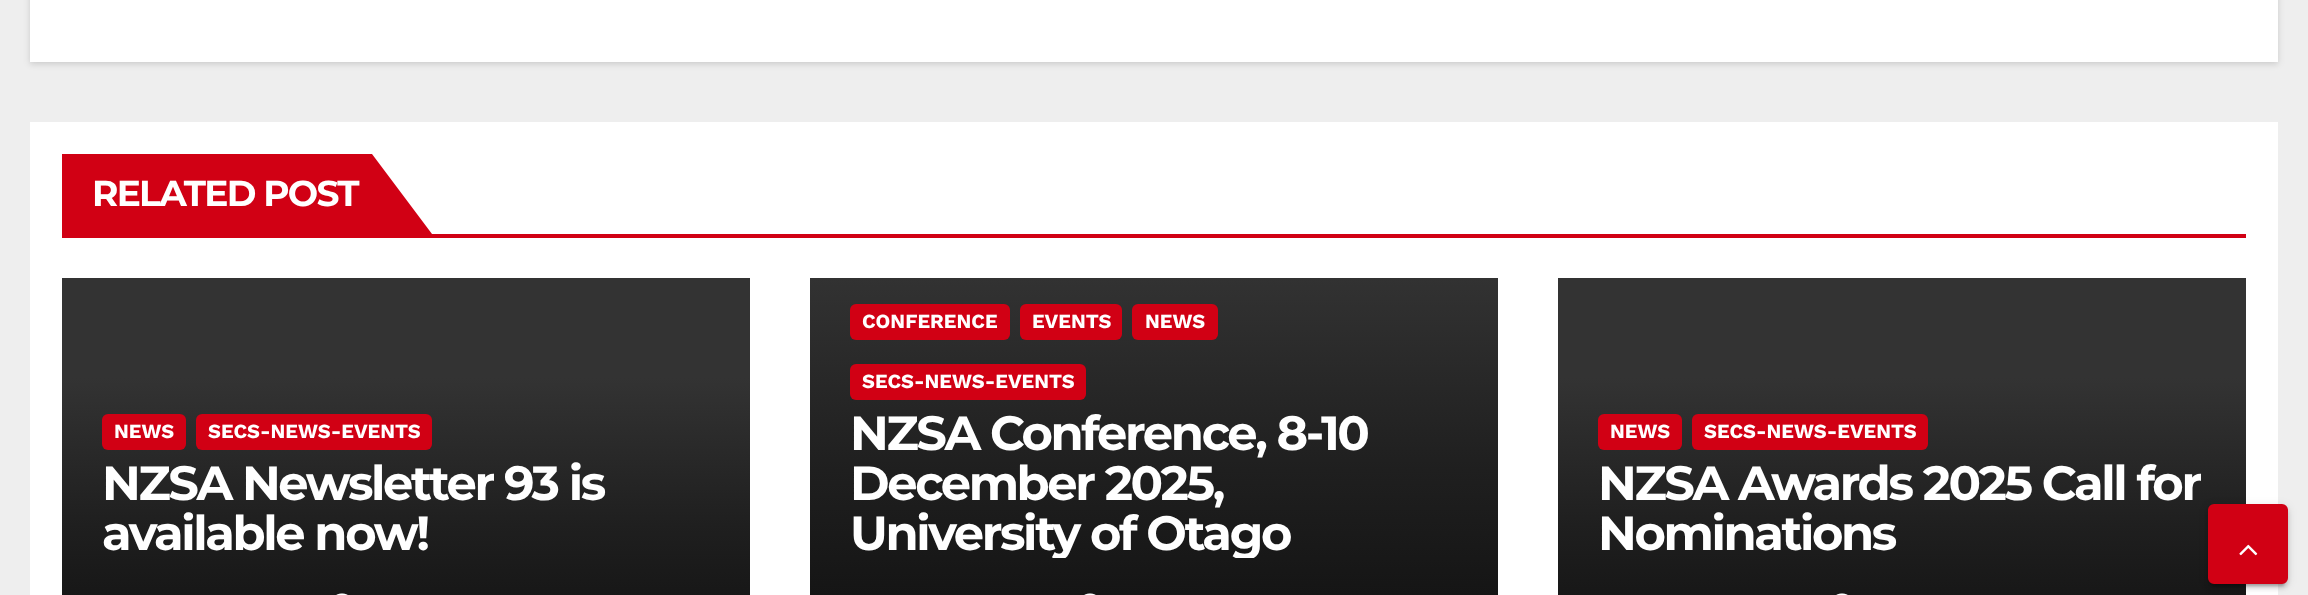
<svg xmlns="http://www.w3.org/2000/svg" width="2308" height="595">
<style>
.a{font:bold 36px Montserrat;letter-spacing:-1.75px;fill:#fff}
.b{font:bold 20px Work Sans;fill:#fff}
.c{font:bold 48px Montserrat;letter-spacing:-2.4px;fill:#fff}
</style>
<defs>
<linearGradient id="g1" gradientUnits="userSpaceOnUse" x1="406" y1="378" x2="406" y2="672"><stop offset="0" stop-color="#333"/><stop offset="0.5" stop-color="#1f1f1f"/><stop offset="1" stop-color="#0f0f0f"/></linearGradient>
<linearGradient id="g2" gradientUnits="userSpaceOnUse" x1="1154" y1="268" x2="1154" y2="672"><stop offset="0" stop-color="#333"/><stop offset="0.5" stop-color="#1f1f1f"/><stop offset="1" stop-color="#0f0f0f"/></linearGradient>
<linearGradient id="g3" gradientUnits="userSpaceOnUse" x1="1902" y1="378" x2="1902" y2="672"><stop offset="0" stop-color="#333"/><stop offset="0.5" stop-color="#1f1f1f"/><stop offset="1" stop-color="#0f0f0f"/></linearGradient>
<clipPath id="clip1"><path d="M850 408h608v150H850z"/></clipPath>
</defs>
<rect width="100%" height="100%" fill="#eee"/>
<path fill="#00000026" filter="blur(3px)" d="M30 -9h2248v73H30z"/>
<path fill="#fff" d="M30 0h2248v62H30z"/>
<path fill="#fff" d="M30 122h2248v473H30z"/>
<path fill="#d10014" d="M62 234h2184v4H62z"/>
<path fill="#d10014" d="M62 154h310v80H62z"/>
<path fill="#d10014" d="M372 234v-80l60 80z"/>
<path fill="#333" d="M62 278h688v100H62z"/>
<path fill="url(#g1)" d="M62 378h688v217H62z"/>
<rect fill="#d10014" x="102" y="414" width="84" height="36" rx="6"/>
<rect fill="#d10014" x="196" y="414" width="236" height="36" rx="6"/>
<image href="1.png" x="336" y="593" width="12" height="2"/>
<path fill="url(#g2)" d="M810 278h688v317H810z"/>
<rect fill="#d10014" x="850" y="304" width="160" height="36" rx="6"/>
<rect fill="#d10014" x="1020" y="304" width="102" height="36" rx="6"/>
<rect fill="#d10014" x="1132" y="304" width="86" height="36" rx="6"/>
<rect fill="#d10014" x="850" y="364" width="236" height="36" rx="6"/>
<image href="2.png" x="1084" y="593" width="12" height="2"/>
<path fill="#333" d="M1558 278h688v100H1558z"/>
<path fill="url(#g3)" d="M1558 378h688v217H1558z"/>
<rect fill="#d10014" x="1598" y="414" width="84" height="36" rx="6"/>
<rect fill="#d10014" x="1692" y="414" width="236" height="36" rx="6"/>
<image href="1.png" x="1836" y="593" width="12" height="2"/>
<rect fill="#0000001f" filter="blur(5px)" x="2208" y="506" width="80" height="80" rx="6"/>
<rect fill="#00000033" filter="blur(1px)" x="2212" y="514" width="72" height="72" rx="2"/>
<rect fill="#00000024" filter="blur(2px)" x="2208" y="508" width="80" height="80" rx="6"/>
<rect fill="#d10014" stroke="#d10014" stroke-width="4" x="2210" y="506" width="76" height="76" rx="4"/>
<image href="3.png" x="2239" y="544" width="19" height="12"/>
<text class="a" x="92" y="206">RELATED POST</text>
<text class="b" x="114" y="438">NEWS</text>
<text class="b" x="208" y="438">SECS-NEWS-EVENTS</text>
<text class="c" x="102" y="500">NZSA Newsletter 93 is</text>
<text class="c" x="102" y="550">available now!</text>
<text class="b" x="862" y="328">CONFERENCE</text>
<text class="b" x="1032" y="328">EVENTS</text>
<text class="b" x="1145" y="328">NEWS</text>
<text class="b" x="862" y="388">SECS-NEWS-EVENTS</text>
<text class="c" x="850" y="450">NZSA Conference, 8-10</text>
<text class="c" x="850" y="500">December 2025,</text>
<g clip-path="url(#clip1)">
<text class="c" x="850" y="550">University of Otago</text>
</g>
<text class="b" x="1610" y="438">NEWS</text>
<text class="b" x="1704" y="438">SECS-NEWS-EVENTS</text>
<text class="c" x="1598" y="500">NZSA Awards 2025 Call for</text>
<text class="c" x="1598" y="550">Nominations</text>
</svg>
